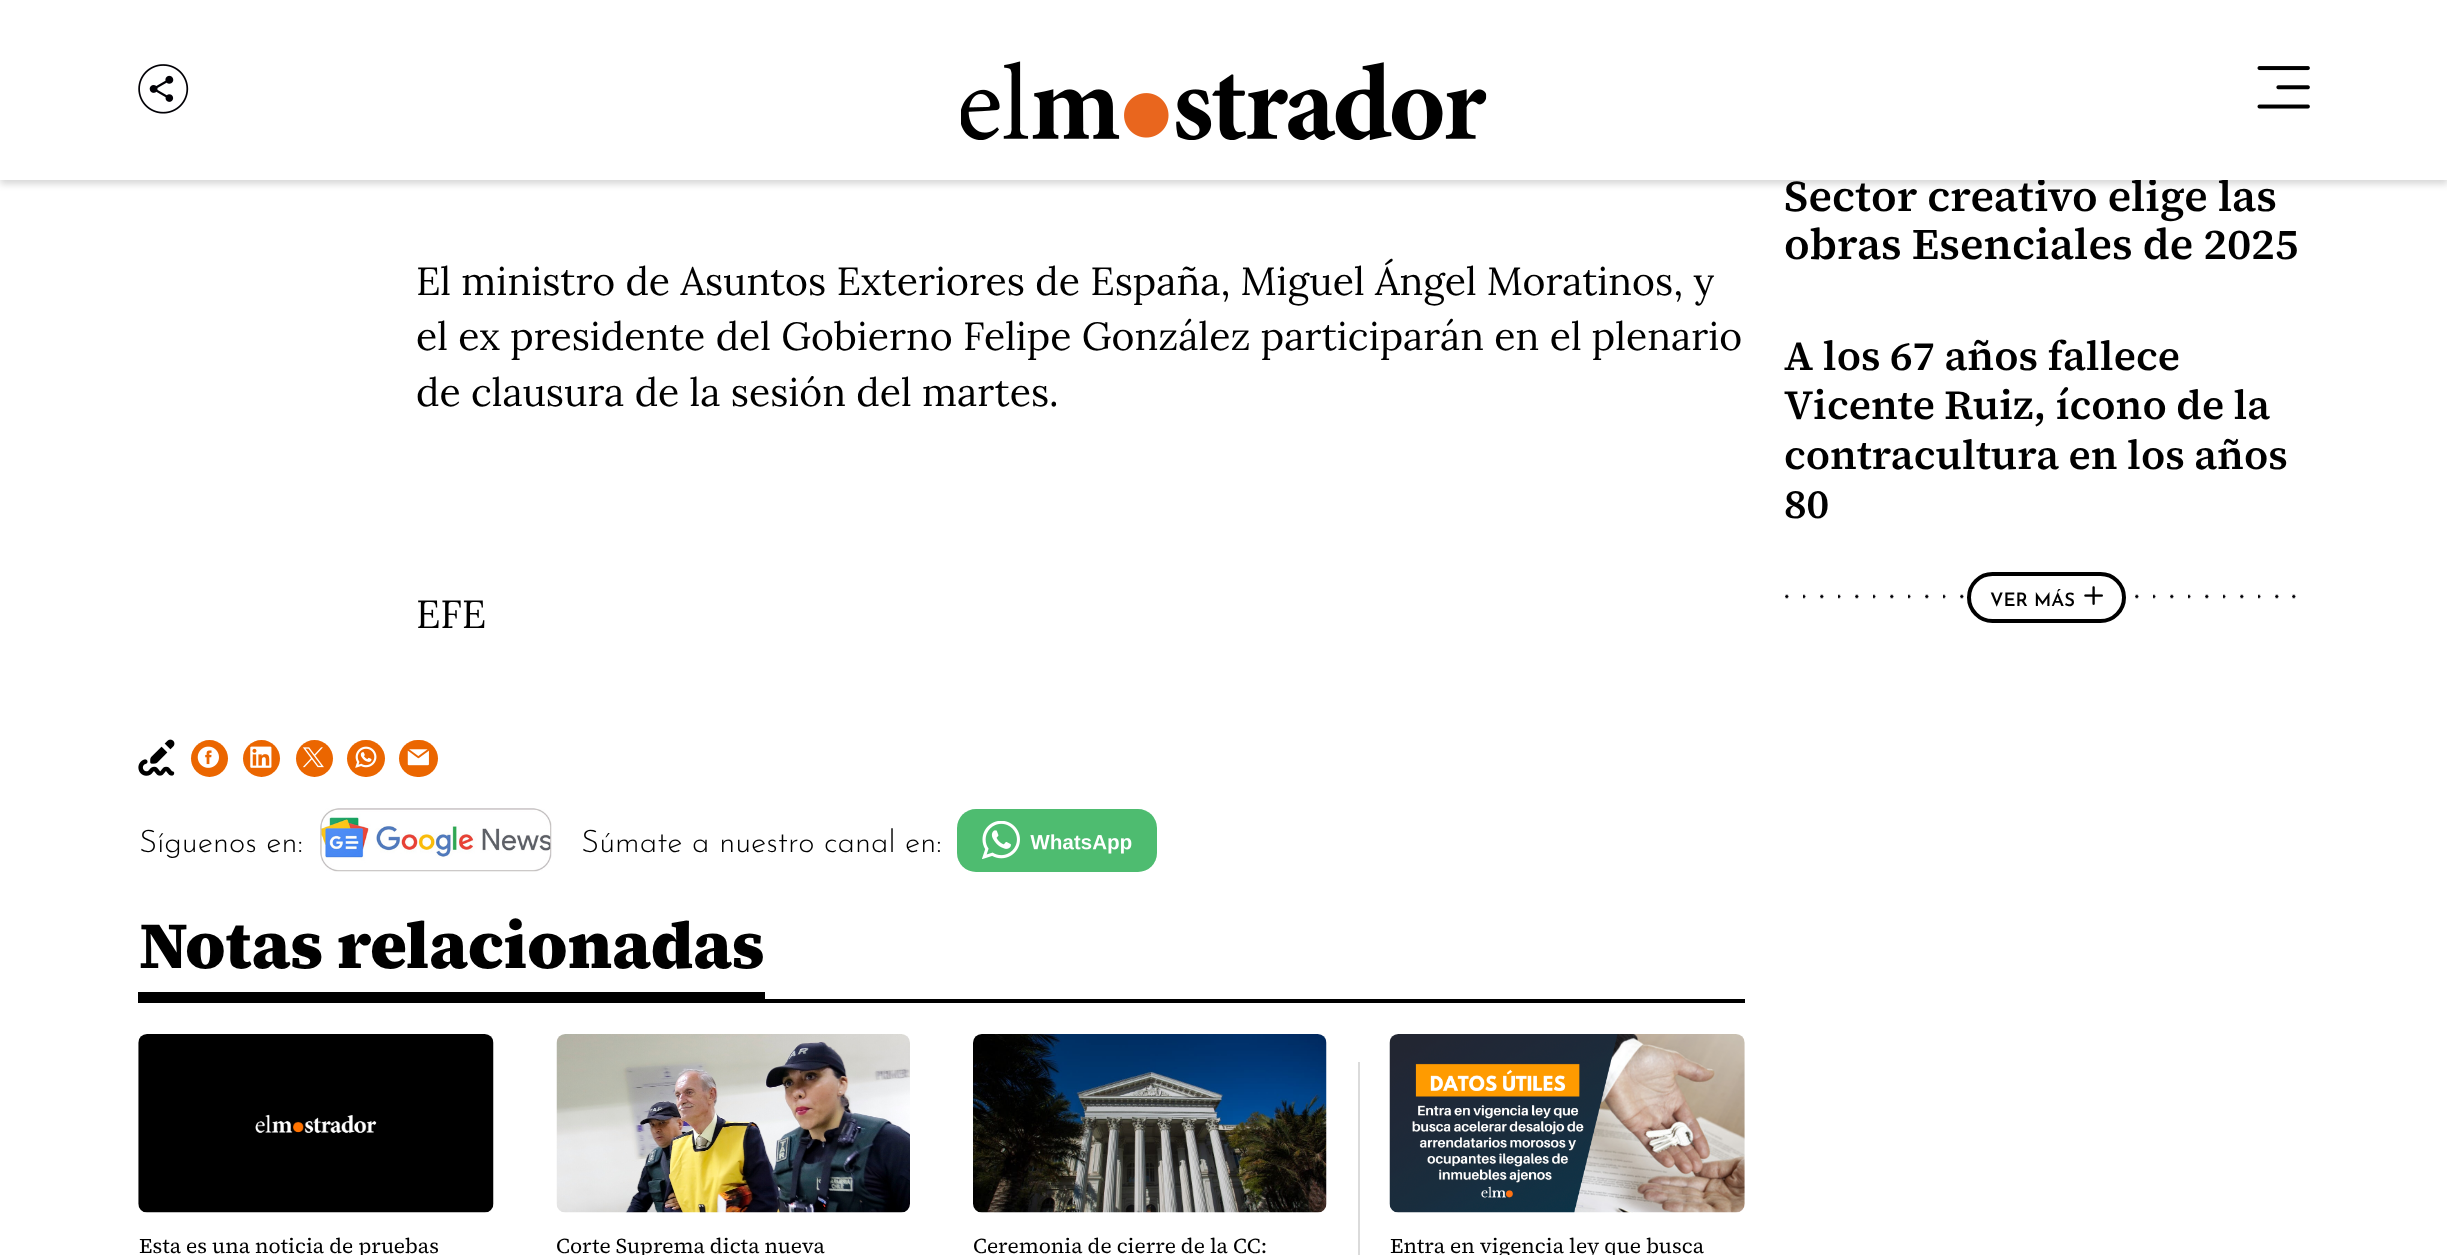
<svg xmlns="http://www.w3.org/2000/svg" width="2447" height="1255">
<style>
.a{font:39.2px Lora;fill:#000}
.b{font:300 31.25px Josefin Sans;fill:#000}
.c{font:900 66.5px 'Source Serif 4';fill:#000}
.d{font:21px 'Source Serif 4';fill:#000}
.e{font:600 43.6px 'Source Serif 4';fill:#000}
.f{font:600 41.25px 'Source Serif 4';fill:#000}
.g{font:600 18.5px Josefin Sans;fill:#000}
</style>
<rect width="100%" height="100%" fill="#fff"/>
<path fill="#00000029" filter="blur(3.5px)" d="M0 4h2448v180H0z"/>
<image href="4.png" x="138" y="739" width="37" height="37"/>
<circle fill="#eb6600" cx="209.5" cy="758.5" r="18.5"/>
<image href="5.png" x="197" y="746" width="22" height="22"/>
<circle fill="#eb6600" cx="261.5" cy="758.5" r="18.5"/>
<image href="6.png" x="250" y="746" width="22" height="22"/>
<circle fill="#eb6600" cx="314.5" cy="758.5" r="18.5"/>
<image href="7.png" x="302" y="747" width="22" height="21"/>
<rect fill="#eb6600" x="347" y="740" width="38" height="37" rx="18.5"/>
<image href="8.png" x="355" y="746" width="22" height="22"/>
<rect fill="#eb6600" x="399" y="740" width="39" height="37" rx="18.5"/>
<image href="9.png" x="407" y="749" width="22" height="17"/>
<image href="10.png" x="320" y="808" width="232" height="64"/>
<rect fill="#4ebc70" x="957" y="809" width="200" height="63" rx="19"/>
<image href="11.png" x="982" y="821" width="150" height="38"/>
<path fill="#000" d="M138 999h1607v4H138z"/>
<path fill="#000" d="M138 992h627v7H138z"/>
<image href="12.png" x="138" y="1034" width="356" height="179"/>
<image href="13.png" x="556" y="1034" width="354" height="179"/>
<image href="14.png" x="973" y="1034" width="354" height="179"/>
<path fill="#dbdbdb" d="M1358 1062h2v193H1358z"/>
<image href="15.png" x="1389" y="1034" width="356" height="179"/>
<image href="17.png" x="1785" y="594" width="511" height="5"/>
<rect fill="#fff" stroke="#000" stroke-width="4" x="1969" y="574" width="155" height="47" rx="23.5"/>
<image href="16.png" x="2084" y="586" width="19" height="19"/>
<text class="a" x="416" y="295">El ministro de Asuntos Exteriores de España, Miguel Ángel Moratinos, y</text>
<text class="a" x="416" y="350">el ex presidente del Gobierno Felipe González participarán en el plenario</text>
<text class="a" x="416" y="406">de clausura de la sesión del martes.</text>
<text class="a" x="416" y="628">EFE</text>
<text class="b" x="139" y="852">Síguenos en:</text>
<text class="b" x="581" y="852">Súmate a nuestro canal en:</text>
<text class="c" x="139" y="968">Notas relacionadas</text>
<text class="d" x="139" y="1253">Esta es una noticia de pruebas</text>
<text class="d" x="556" y="1253">Corte Suprema dicta nueva</text>
<text class="d" x="973" y="1253">Ceremonia de cierre de la CC:</text>
<text class="d" x="1390" y="1253">Entra en vigencia ley que busca</text>
<text class="e" x="1784" y="211">Sector creativo elige las</text>
<path fill="#fff" d="M0 0h2447v180H0z"/>
<image href="3.png" x="2257" y="66" width="53" height="43"/>
<image href="2.png" x="961" y="61" width="526" height="79"/>
<image href="1.png" x="138" y="64" width="51" height="50"/>
<text class="e" x="1784" y="259">obras Esenciales de 2025</text>
<text class="f" x="1784" y="370">A los 67 años fallece</text>
<text class="f" x="1784" y="419">Vicente Ruiz, ícono de la</text>
<text class="f" x="1784" y="469">contracultura en los años</text>
<text class="f" x="1784" y="518">80</text>
<text class="g" x="1990" y="606">VER MÁS</text>
</svg>
